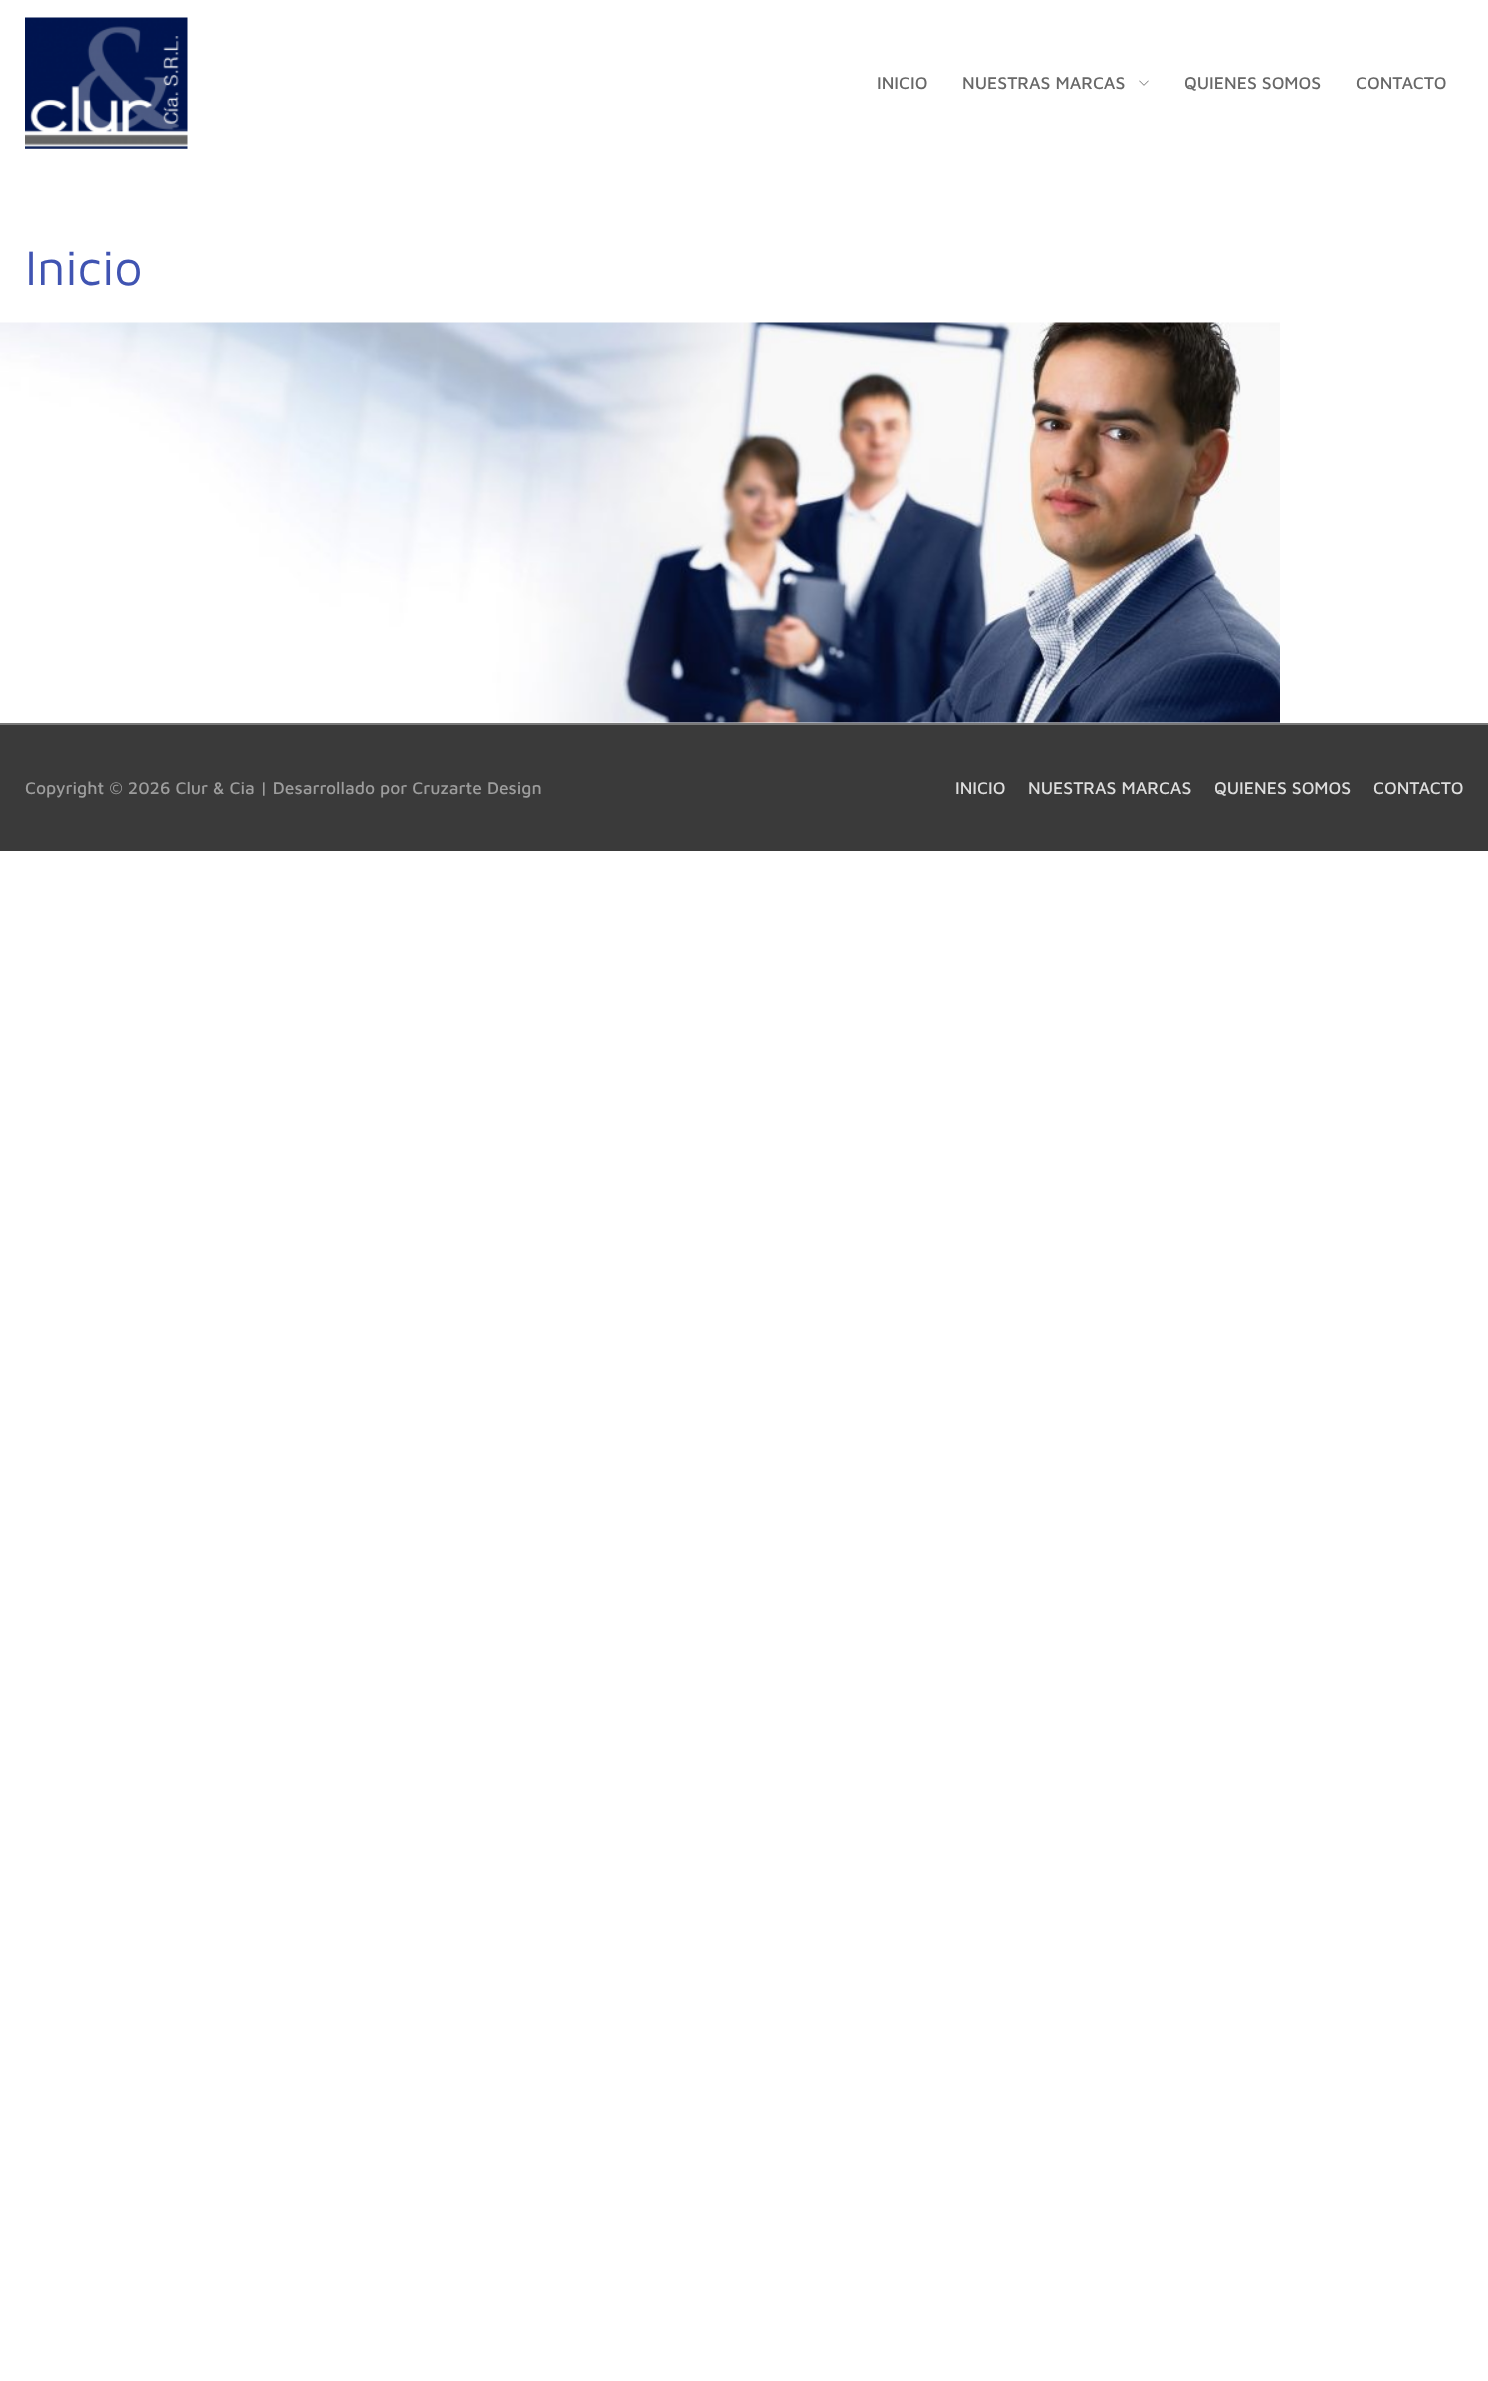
<svg xmlns="http://www.w3.org/2000/svg" width="1488" height="2381">
<style>
.a{font:500 17.5px Maven Pro;fill:#686868}
.b{font:50px Maven Pro;fill:#4054b2}
.c{font:500 17.5px Maven Pro;fill:#9d9d9d}
.d{font:500 17.5px Maven Pro;fill:#ddd}
</style>
<rect width="100%" height="100%" fill="#fff"/>
<image href="1.png" x="25" y="17" width="163" height="132"/>
<image href="2.png" x="1139" y="80" width="10" height="6"/>
<image href="3.png" x="0" y="322" width="1280" height="401"/>
<path fill="#7a7a7a" d="M0 723h1488v2H0z"/>
<path fill="#3a3a3a" d="M0 725h1488v126H0z"/>
<text class="a" x="877" y="89">INICIO</text>
<text class="a" x="962" y="89">NUESTRAS MARCAS</text>
<text class="a" x="1184" y="89">QUIENES SOMOS</text>
<text class="a" x="1356" y="89">CONTACTO</text>
<text class="b" x="25" y="285">Inicio</text>
<text class="c" x="25" y="794">Copyright © 2026 Clur &amp; Cia | Desarrollado por Cruzarte Design</text>
<text class="d" x="955" y="794">INICIO</text>
<text class="d" x="1028" y="794">NUESTRAS MARCAS</text>
<text class="d" x="1214" y="794">QUIENES SOMOS</text>
<text class="d" x="1373" y="794">CONTACTO</text>
</svg>
